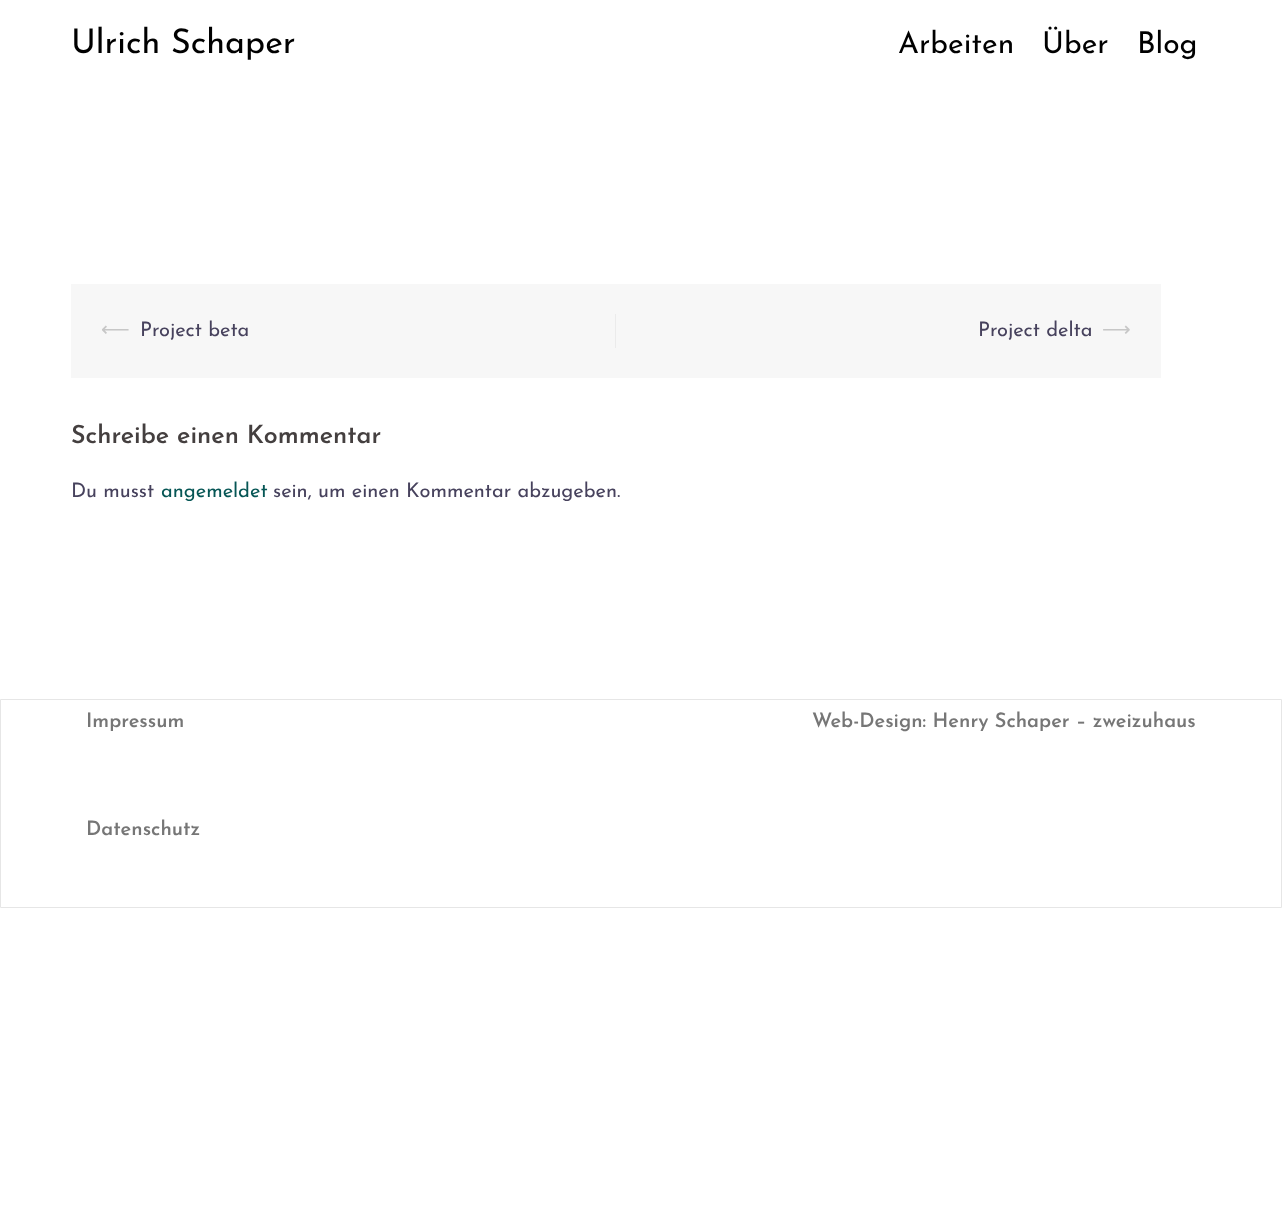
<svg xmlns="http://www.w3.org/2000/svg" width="1282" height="1208">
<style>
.a{font:34px Josefin Sans;fill:#000}
.b{font:30px Josefin Sans;fill:#000}
.c{font:20px DejaVu Sans;fill:#c7c7c7}
.d{font:20px Josefin Sans;fill:#47425d}
.e{font:600 25px Josefin Sans;fill:#443f3f}
.f{font:20px Josefin Sans;fill:#065655}
.g{font:600 20px Josefin Sans;fill:#767676}
</style>
<rect width="100%" height="100%" fill="#fff"/>
<path fill="#f7f7f7" d="M71 284h1090v94H71z"/>
<path fill="#ebebeb" d="M615 314h1v34H615z"/>
<path fill="none" stroke="#e6e6e6" d="M0.5 699.5h1281v208H0.5z"/>
<text class="a" x="71" y="53">Ulrich Schaper</text>
<text class="b" x="898" y="53">Arbeiten</text>
<text class="b" x="1042" y="53">Über</text>
<text class="b" x="1137" y="53">Blog</text>
<text class="c" x="101" y="336">⟵</text>
<text class="d" x="140" y="336">Project beta</text>
<text class="d" x="978" y="336">Project delta</text>
<text class="c" x="1102" y="336">⟶</text>
<text class="e" x="71" y="443">Schreibe einen Kommentar</text>
<text class="d" x="71" y="497">Du musst</text>
<text class="f" x="161" y="497">angemeldet</text>
<text class="d" x="273" y="497">sein, um einen Kommentar abzugeben.</text>
<text class="g" x="86" y="727">Impressum</text>
<text class="g" x="812" y="727">Web-Design: Henry Schaper – zweizuhaus</text>
<text class="g" x="86" y="835">Datenschutz</text>
</svg>
